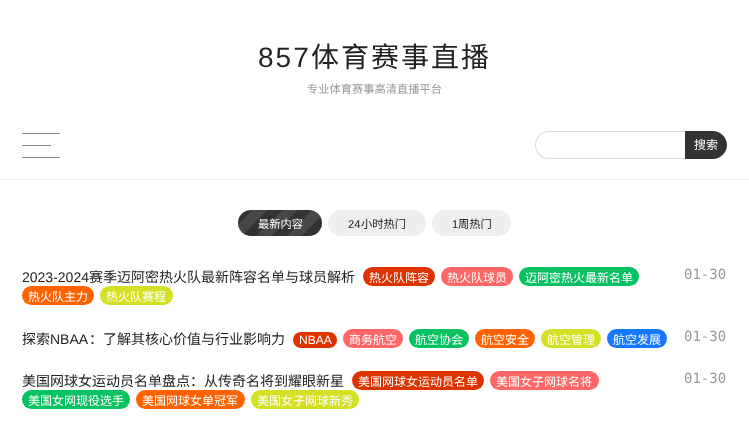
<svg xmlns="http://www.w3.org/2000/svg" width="749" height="424">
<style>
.a{font:28px Liberation Sans;letter-spacing:2px;fill:#222}
.b{font:28px Noto Sans CJK SC;letter-spacing:2px;fill:#222}
.c{font:11.25px Noto Sans CJK SC;fill:#999}
.d{font:12px Noto Sans CJK SC;fill:#fff}
.e{font:11.25px Noto Sans CJK SC;fill:#fff}
.f{font:11.25px Liberation Sans;fill:#222}
.g{font:11.25px Noto Sans CJK SC;fill:#222}
.h{font:14px Liberation Sans;fill:#222}
.i{font:14px Noto Sans CJK SC;fill:#222}
.j{font:14px DejaVu Sans Mono;fill:#999}
.k{font:12px Liberation Sans;fill:#fff}
</style>
<defs>
<linearGradient id="g1" gradientUnits="userSpaceOnUse" x1="238" y1="210" x2="268" y2="240"><stop offset="0.25" stop-color="#fff" stop-opacity="0"/><stop offset="0.25" stop-color="#fff" stop-opacity="0.1"/><stop offset="0.5" stop-color="#fff" stop-opacity="0.1"/><stop offset="0.5" stop-color="#fff" stop-opacity="0"/><stop offset="0.75" stop-color="#fff" stop-opacity="0"/><stop offset="0.75" stop-color="#fff" stop-opacity="0.1"/><stop offset="0.88" stop-color="#fff" stop-opacity="0.1"/><stop offset="1" stop-color="#fff" stop-opacity="0"/></linearGradient>
<linearGradient id="g2" gradientUnits="userSpaceOnUse" x1="268" y1="210" x2="298" y2="240"><stop offset="0.25" stop-color="#333"/><stop offset="0.25" stop-color="#474747"/><stop offset="0.5" stop-color="#474747"/><stop offset="0.5" stop-color="#333"/><stop offset="0.75" stop-color="#333"/><stop offset="0.75" stop-color="#474747"/><stop offset="0.88" stop-color="#474747"/><stop offset="1" stop-color="#333"/></linearGradient>
<linearGradient id="g3" gradientUnits="userSpaceOnUse" x1="298" y1="210" x2="328" y2="240"><stop offset="0.25" stop-color="#fff" stop-opacity="0"/><stop offset="0.25" stop-color="#fff" stop-opacity="0.1"/><stop offset="0.5" stop-color="#fff" stop-opacity="0.1"/><stop offset="0.5" stop-color="#fff" stop-opacity="0"/><stop offset="0.75" stop-color="#fff" stop-opacity="0"/><stop offset="0.75" stop-color="#fff" stop-opacity="0.1"/><stop offset="0.88" stop-color="#fff" stop-opacity="0.1"/><stop offset="1" stop-color="#fff" stop-opacity="0"/></linearGradient>
</defs>
<rect width="100%" height="100%" fill="#fff"/>
<path fill="#eee" d="M0 179h749v1H0z"/>
<path fill="#888" d="M22 133h38v1H22z"/>
<path fill="#888" d="M22 157h38v1H22z"/>
<path fill="#888" d="M22 145h29v1H22z"/>
<path fill="#ddd" fill-rule="evenodd" d="M549 131h136v28h-136c-8 0-14-6-14-14c0-8 6-14 14-14zm0 1h136v26h-136c-7 0-13-6-13-13c0-7 6-13 13-13z"/>
<path fill="#333" d="M685 131h28c7.5 0 14 6.5 14 14c0 7.5-6.5 14-14 14h-28z"/>
<rect fill="#333" x="238" y="210" width="84" height="26" rx="13"/>
<path fill="url(#g1)" d="M251 210h17v26h-17c-7 0-13-6-13-13c0-7 6-13 13-13z"/>
<path fill="url(#g2)" d="M268 210h30v26H268z"/>
<path fill="url(#g3)" d="M298 210h11c7 0 13 6 13 13c0 7-6 13-13 13h-11z"/>
<rect fill="#eee" x="328" y="210" width="98" height="26" rx="13"/>
<rect fill="#eee" x="432" y="210" width="79" height="26" rx="13"/>
<rect fill="#d30" x="363" y="267" width="72" height="19" rx="9.5"/>
<rect fill="#f66" x="441" y="267" width="72" height="19" rx="9.5"/>
<rect fill="#08c161" x="519" y="267" width="120" height="19" rx="9.5"/>
<rect fill="#ff6200" x="22" y="286" width="72" height="19" rx="9.5"/>
<rect fill="#d3e023" x="100" y="286" width="73" height="19" rx="9.5"/>
<rect fill="#d30" x="293" y="332" width="44" height="16" rx="8"/>
<rect fill="#f66" x="343" y="329" width="60" height="19" rx="9.5"/>
<rect fill="#08c161" x="409" y="329" width="60" height="19" rx="9.5"/>
<rect fill="#ff6200" x="475" y="329" width="60" height="19" rx="9.5"/>
<rect fill="#d3e023" x="541" y="329" width="60" height="19" rx="9.5"/>
<rect fill="#1677ff" x="607" y="329" width="60" height="19" rx="9.5"/>
<rect fill="#d30" x="352" y="371" width="132" height="19" rx="9.5"/>
<rect fill="#f66" x="490" y="371" width="109" height="19" rx="9.5"/>
<rect fill="#08c161" x="22" y="390" width="108" height="19" rx="9.5"/>
<rect fill="#ff6200" x="136" y="390" width="109" height="19" rx="9.5"/>
<rect fill="#d3e023" x="251" y="390" width="108" height="19" rx="9.5"/>
<text class="a" x="258" y="67">857</text>
<text class="b" x="311" y="67">体育赛事直播</text>
<text class="c" x="307" y="93">专业体育赛事高清直播平台</text>
<text class="d" x="694" y="149">搜索</text>
<text class="e" x="258" y="228">最新内容</text>
<text class="f" x="348" y="228">24</text>
<text class="g" x="361" y="228">小时热门</text>
<text class="f" x="452" y="228">1</text>
<text class="g" x="458" y="228">周热门</text>
<text class="d" x="369" y="282">热火队阵容</text>
<text class="d" x="447" y="282">热火队球员</text>
<text class="d" x="525" y="282">迈阿密热火最新名单</text>
<text class="d" x="28" y="301">热火队主力</text>
<text class="d" x="106" y="301">热火队赛程</text>
<text class="h" x="22" y="282">2023-2024</text>
<text class="i" x="89" y="282">赛季迈阿密热火队最新阵容名单与球员解析</text>
<text class="j" x="684" y="279">01-30</text>
<text class="i" x="22" y="344">探索</text>
<text class="h" x="50" y="344">NBAA</text>
<text class="i" x="89" y="344">：了解其核心价值与行业影响力</text>
<text class="k" x="299" y="344">NBAA</text>
<text class="d" x="349" y="344">商务航空</text>
<text class="d" x="415" y="344">航空协会</text>
<text class="d" x="481" y="344">航空安全</text>
<text class="d" x="547" y="344">航空管理</text>
<text class="d" x="613" y="344">航空发展</text>
<text class="j" x="684" y="341">01-30</text>
<text class="i" x="22" y="386">美国网球女运动员名单盘点：从传奇名将到耀眼新星</text>
<text class="d" x="358" y="386">美国网球女运动员名单</text>
<text class="d" x="496" y="386">美国女子网球名将</text>
<text class="d" x="28" y="405">美国女网现役选手</text>
<text class="d" x="142" y="405">美国网球女单冠军</text>
<text class="d" x="257" y="405">美国女子网球新秀</text>
<text class="j" x="684" y="383">01-30</text>
</svg>
